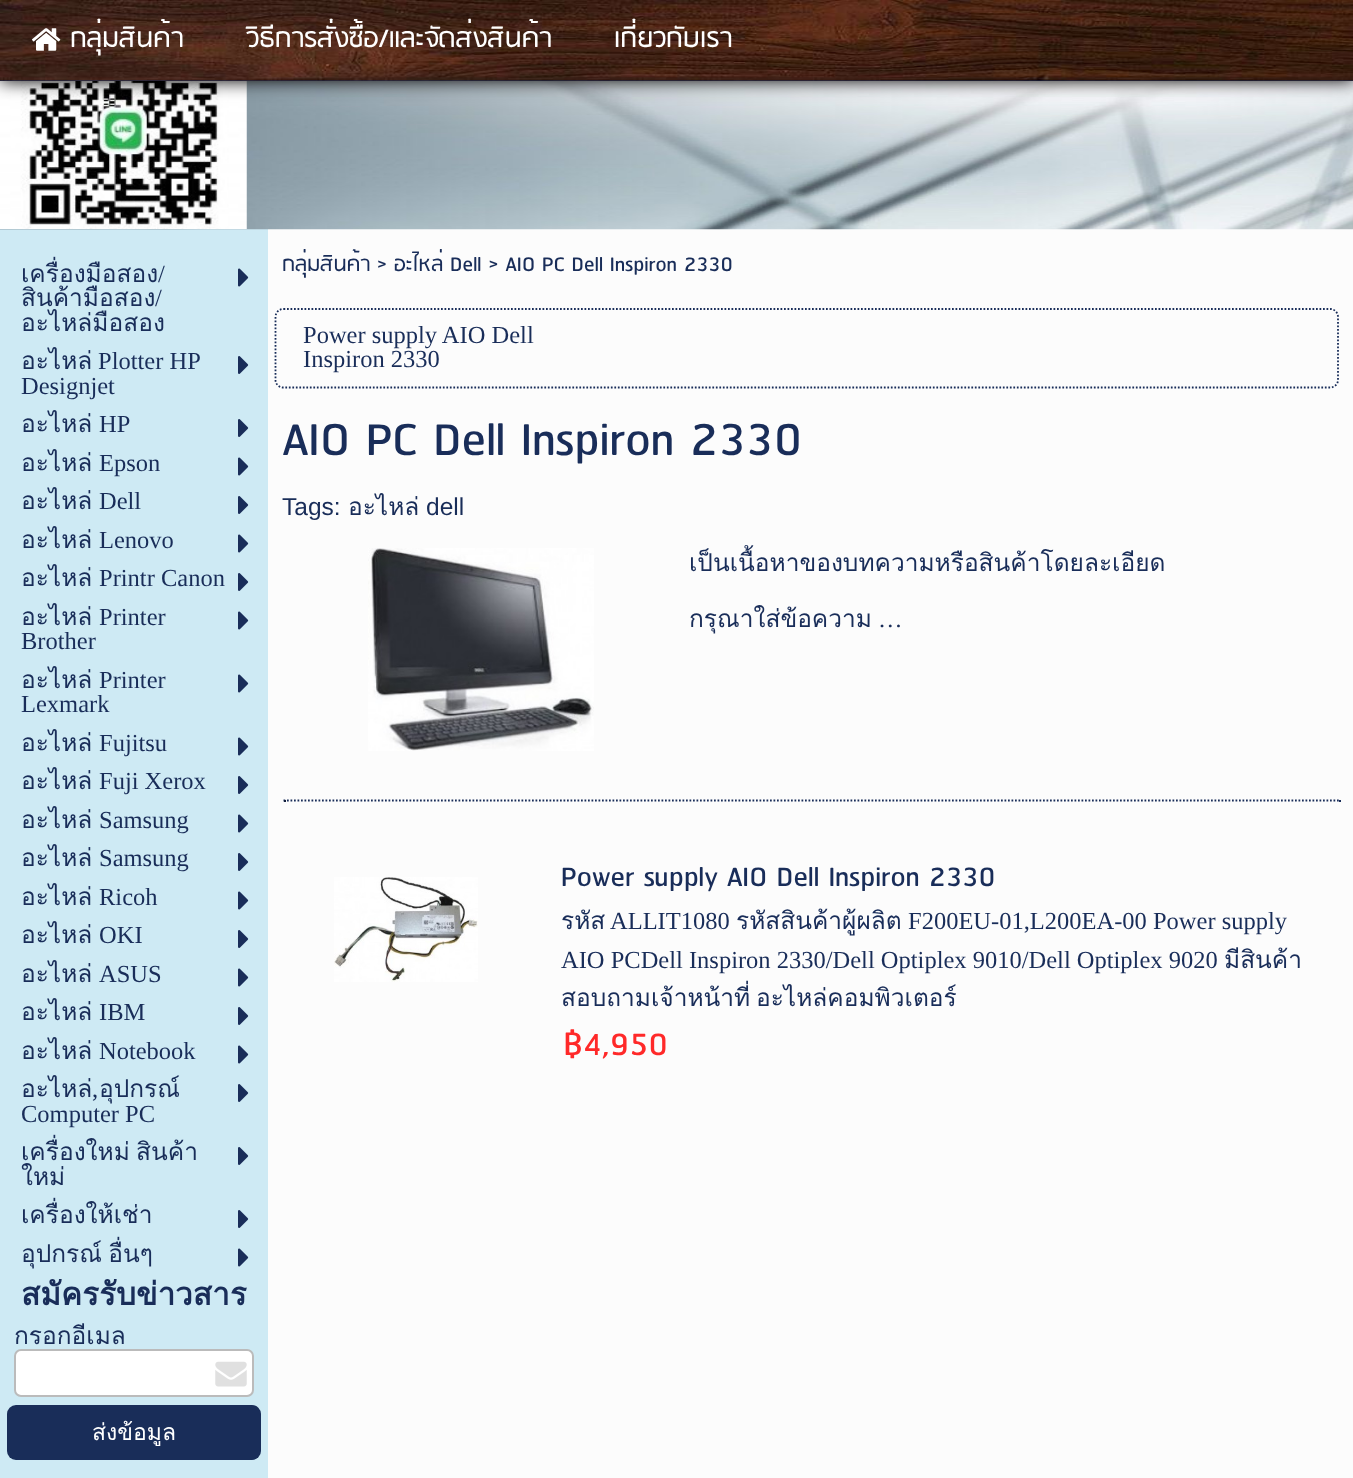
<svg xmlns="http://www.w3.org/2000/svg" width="1353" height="1478">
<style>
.a{font:31.5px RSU;fill:#fff}
.b{font:24.5px Loma;fill:#192d59}
.c{font:24.5px Liberation Serif;fill:#192d59}
.d{font:bold 31.5px Loma;fill:#192d59}
.e{font:23px Loma;fill:#fff}
.f{font:24.5px RSU;fill:#192d59}
.g{font:56px RSU;fill:#192d59}
.h{font:24.5px Liberation Sans;fill:#192d59}
.i{font:33.25px RSU;fill:#192d59}
.j{font:38.5px RSU;fill:#ff2929}
</style>
<rect width="100%" height="100%" fill="#fcfcfc"/>
<path fill="#ceeaf4" d="M0 229h268v1249H0z"/>
<image href="3.png" x="0" y="81" width="1353" height="149"/>
<image href="4.png" x="0" y="81" width="247" height="149"/>
<path fill="#000" filter="blur(9px)" d="M0 0h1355v81H0z"/>
<path fill="#192d59" d="M0 80h1353v1H0z"/>
<image href="1.png" x="0" y="0" width="1353" height="81"/>
<image href="2.png" x="32" y="28" width="29" height="23"/>
<image href="5.png" x="238" y="268" width="11" height="19"/>
<image href="6.png" x="238" y="356" width="11" height="18"/>
<image href="6.png" x="238" y="419" width="11" height="18"/>
<image href="5.png" x="238" y="457" width="11" height="19"/>
<image href="6.png" x="238" y="496" width="11" height="18"/>
<image href="5.png" x="238" y="534" width="11" height="19"/>
<image href="6.png" x="238" y="573" width="11" height="18"/>
<image href="5.png" x="238" y="611" width="11" height="19"/>
<image href="5.png" x="238" y="674" width="11" height="19"/>
<image href="5.png" x="238" y="737" width="11" height="19"/>
<image href="6.png" x="238" y="776" width="11" height="18"/>
<image href="5.png" x="238" y="814" width="11" height="19"/>
<image href="6.png" x="238" y="853" width="11" height="18"/>
<image href="5.png" x="238" y="891" width="11" height="19"/>
<image href="6.png" x="238" y="930" width="11" height="18"/>
<image href="5.png" x="238" y="968" width="11" height="19"/>
<image href="6.png" x="238" y="1007" width="11" height="18"/>
<image href="5.png" x="238" y="1045" width="11" height="19"/>
<image href="6.png" x="238" y="1084" width="11" height="18"/>
<image href="6.png" x="238" y="1147" width="11" height="18"/>
<image href="6.png" x="238" y="1210" width="11" height="18"/>
<image href="5.png" x="238" y="1248" width="11" height="19"/>
<rect fill="#fff" stroke="#bbb" stroke-width="2" x="15" y="1350" width="238" height="46" rx="6"/>
<image href="7.png" x="215" y="1361" width="32" height="26"/>
<rect fill="#192d59" x="7" y="1405" width="254" height="55" rx="9"/>
<path fill="none" stroke="#192d59" stroke-width="1.8" stroke-dasharray="1.75 1.75" d="M283.5 309h1046.5c4.5 0 8 3.5 8 8v63c0 4-3.5 7.5-8 7.5h-1046.5c-4.5 0-8-3.5-8-7.5v-63c0-4.5 3.5-8 8-8z"/>
<image href="8.png" x="368" y="548" width="226" height="203"/>
<path fill="none" stroke="#192d59" stroke-width="1.8" stroke-dasharray="1.75 1.75" d="M283.5 800.5h1057"/>
<path fill="#192d59" d="M1339 800h2v2H1339z"/>
<path fill="#111e3b" d="M284 800h2v2H284z"/>
<image href="9.png" x="334" y="877" width="144" height="105"/>
<text class="a" x="70" y="47">กลุ่มสินค้า</text>
<text class="a" x="246" y="47">วิธีการสั่งซื้อ/และจัดส่งสินค้า</text>
<text class="a" x="614" y="47">เกี่ยวกับเรา</text>
<text class="b" x="21" y="282">เครื่องมือสอง</text>
<text class="c" x="158" y="282">/</text>
<text class="b" x="21" y="306">สินค้ามือสอง</text>
<text class="c" x="155" y="306">/</text>
<text class="b" x="21" y="331">อะไหล่มือสอง</text>
<text class="b" x="21" y="369">อะไหล่</text>
<text class="c" x="98" y="369">Plotter HP</text>
<text class="c" x="21" y="394">Designjet</text>
<text class="b" x="21" y="432">อะไหล่</text>
<text class="c" x="99" y="432">HP</text>
<text class="b" x="21" y="471">อะไหล่</text>
<text class="c" x="99" y="471">Epson</text>
<text class="b" x="21" y="509">อะไหล่</text>
<text class="c" x="99" y="509">Dell</text>
<text class="b" x="21" y="548">อะไหล่</text>
<text class="c" x="99" y="548">Lenovo</text>
<text class="b" x="21" y="586">อะไหล่</text>
<text class="c" x="99" y="586">Printr Canon</text>
<text class="b" x="21" y="625">อะไหล่</text>
<text class="c" x="99" y="625">Printer</text>
<text class="c" x="21" y="649">Brother</text>
<text class="b" x="21" y="688">อะไหล่</text>
<text class="c" x="99" y="688">Printer</text>
<text class="c" x="21" y="712">Lexmark</text>
<text class="b" x="21" y="751">อะไหล่</text>
<text class="c" x="99" y="751">Fujitsu</text>
<text class="b" x="21" y="789">อะไหล่</text>
<text class="c" x="99" y="789">Fuji Xerox</text>
<text class="b" x="21" y="828">อะไหล่</text>
<text class="c" x="99" y="828">Samsung</text>
<text class="b" x="21" y="866">อะไหล่</text>
<text class="c" x="99" y="866">Samsung</text>
<text class="b" x="21" y="905">อะไหล่</text>
<text class="c" x="99" y="905">Ricoh</text>
<text class="b" x="21" y="943">อะไหล่</text>
<text class="c" x="99" y="943">OKI</text>
<text class="b" x="21" y="982">อะไหล่</text>
<text class="c" x="99" y="982">ASUS</text>
<text class="b" x="21" y="1020">อะไหล่</text>
<text class="c" x="99" y="1020">IBM</text>
<text class="b" x="21" y="1059">อะไหล่</text>
<text class="c" x="99" y="1059">Notebook</text>
<text class="b" x="21" y="1097">อะไหล่</text>
<text class="c" x="92" y="1097">,</text>
<text class="b" x="99" y="1097">อุปกรณ์</text>
<text class="c" x="21" y="1122">Computer PC</text>
<text class="b" x="21" y="1160" word-spacing="-2">เครื่องใหม่ สินค้า</text>
<text class="b" x="21" y="1185">ใหม่</text>
<text class="b" x="21" y="1223">เครื่องให้เช่า</text>
<text class="b" x="21" y="1262" word-spacing="-2">อุปกรณ์ อื่นๆ</text>
<text class="d" x="21" y="1305">สมัครรับข่าวสาร</text>
<text class="b" x="14" y="1344">กรอกอีเมล</text>
<text class="e" x="92" y="1440">ส่งข้อมูล</text>
<text class="f" x="282" y="271">กลุ่มสินค้า &gt; อะไหล่ Dell &gt; AIO PC Dell Inspiron 2330</text>
<text class="c" x="303" y="343">Power supply AIO Dell</text>
<text class="c" x="303" y="367">Inspiron 2330</text>
<text class="g" x="282" y="455">AIO PC Dell Inspiron 2330</text>
<text class="h" x="282" y="515">Tags:</text>
<text class="b" x="348" y="515">อะไหล่</text>
<text class="h" x="426" y="515">dell</text>
<text class="b" x="689" y="571">เป็นเนื้อหาของบทความหรือสินค้าโดยละเอียด</text>
<text class="b" x="689" y="627">กรุณาใส่ข้อความ</text>
<text class="c" x="878" y="627">…</text>
<text class="i" x="561" y="886">Power supply AIO Dell Inspiron 2330</text>
<text class="b" x="561" y="929">รหัส</text>
<text class="c" x="610" y="929">ALLIT1080</text>
<text class="b" x="736" y="929">รหัสสินค้าผู้ผลิต</text>
<text class="c" x="908" y="929">F200EU-01,L200EA-00 Power supply</text>
<text class="c" x="561" y="968">AIO PCDell Inspiron 2330/Dell Optiplex 9010/Dell Optiplex 9020</text>
<text class="b" x="1224" y="968">มีสินค้า</text>
<text class="b" x="561" y="1006">สอบถามเจ้าหน้าที่</text>
<text class="b" x="756" y="1006">อะไหล่คอมพิวเตอร์</text>
<text class="j" x="563" y="1055">฿4,950</text>
</svg>
